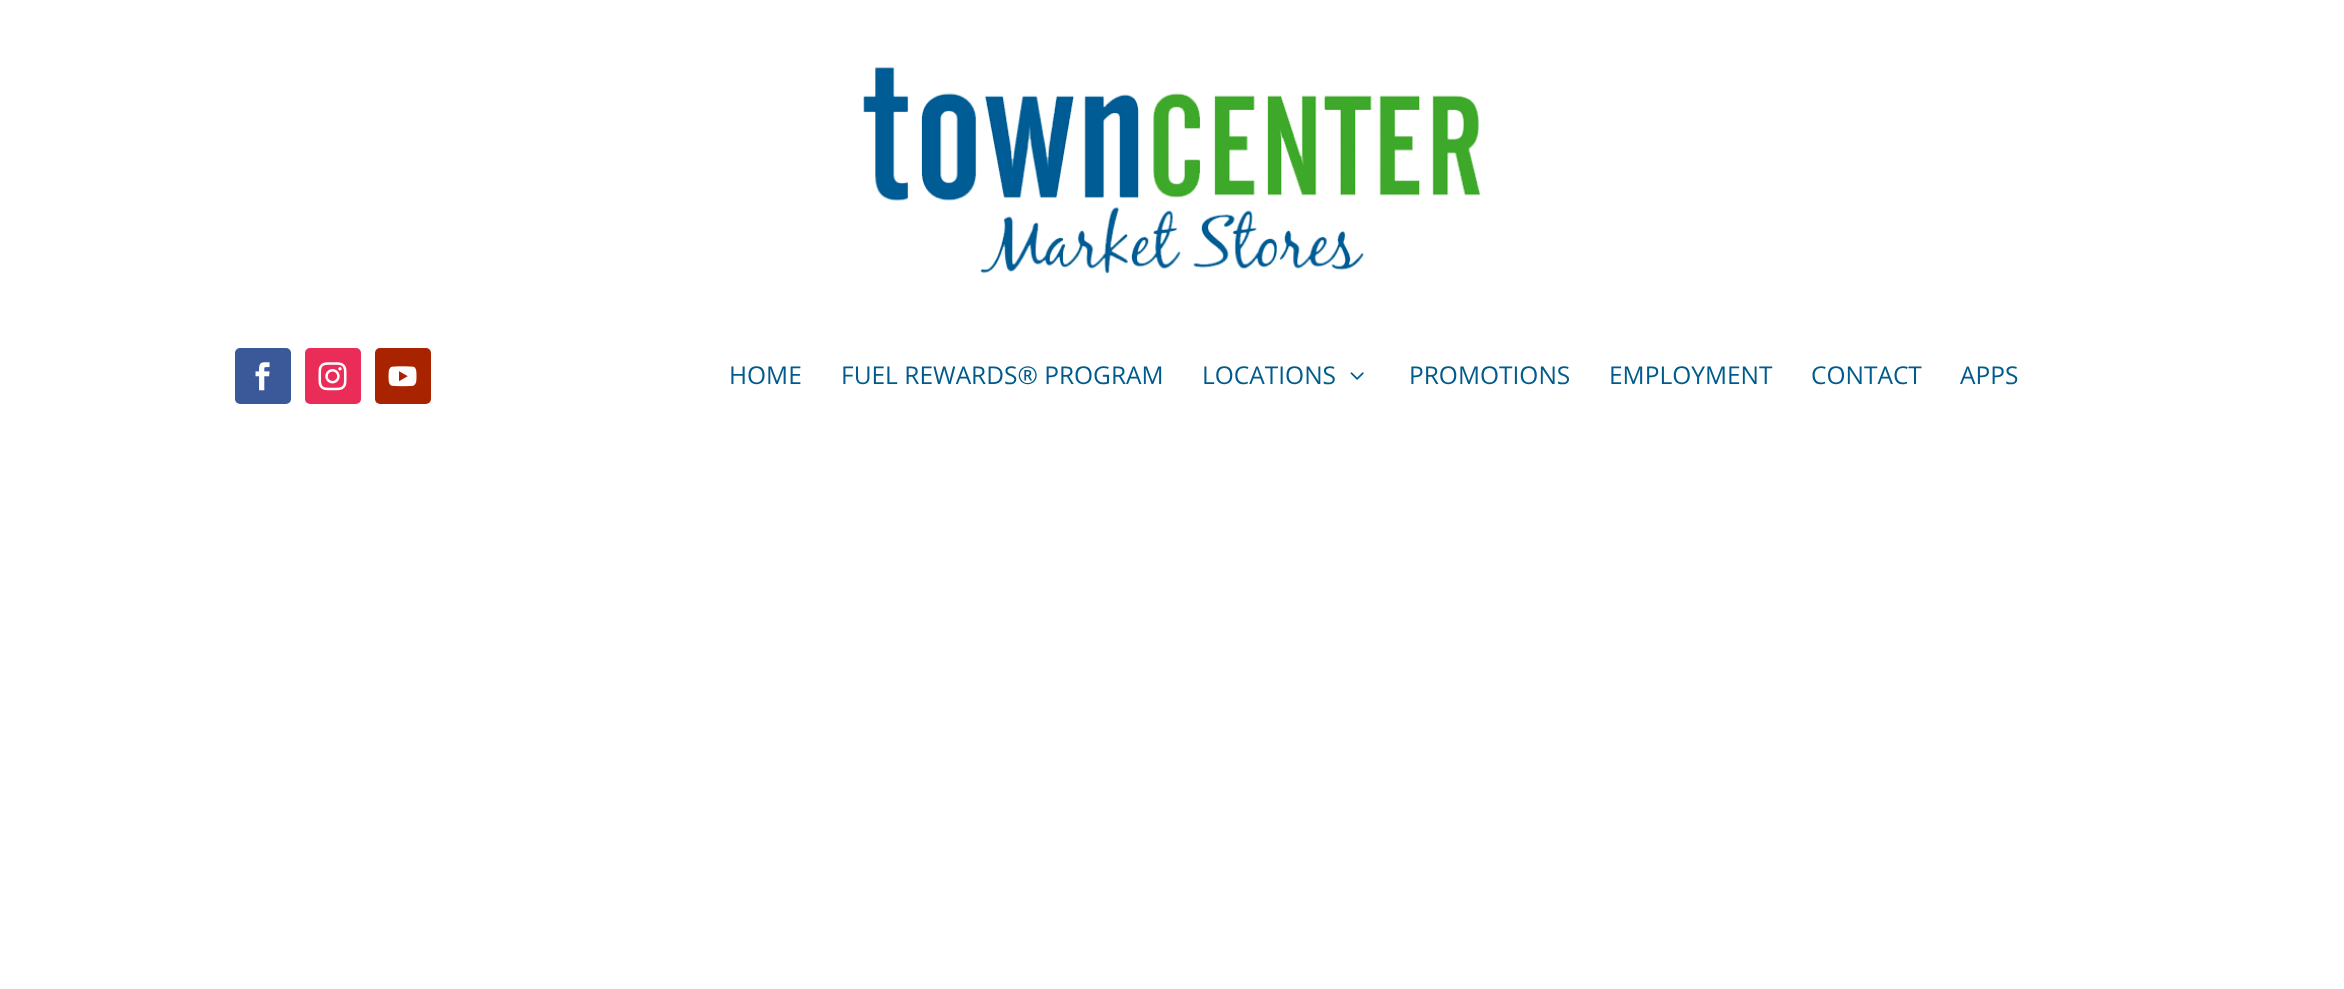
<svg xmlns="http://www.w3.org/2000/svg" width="2344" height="989">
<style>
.a{font:24.5px Open Sans;fill:#005b8c}
</style>
<rect width="100%" height="100%" fill="#fff"/>
<image href="1.png" x="863" y="67" width="618" height="207"/>
<rect fill="#3b5998" x="235" y="348" width="56" height="56" rx="5"/>
<image href="2.png" x="255" y="362" width="15" height="29"/>
<rect fill="#ea2c59" x="305" y="348" width="56" height="56" rx="5"/>
<image href="3.png" x="318" y="362" width="29" height="29"/>
<rect fill="#a82400" x="375" y="348" width="56" height="56" rx="5"/>
<image href="4.png" x="388" y="366" width="29" height="21"/>
<image href="5.png" x="1350" y="372" width="14" height="8"/>
<text class="a" x="729" y="384">HOME</text>
<text class="a" x="841" y="384">FUEL REWARDS® PROGRAM</text>
<text class="a" x="1202" y="384">LOCATIONS</text>
<text class="a" x="1409" y="384">PROMOTIONS</text>
<text class="a" x="1609" y="384">EMPLOYMENT</text>
<text class="a" x="1811" y="384">CONTACT</text>
<text class="a" x="1960" y="384">APPS</text>
</svg>
